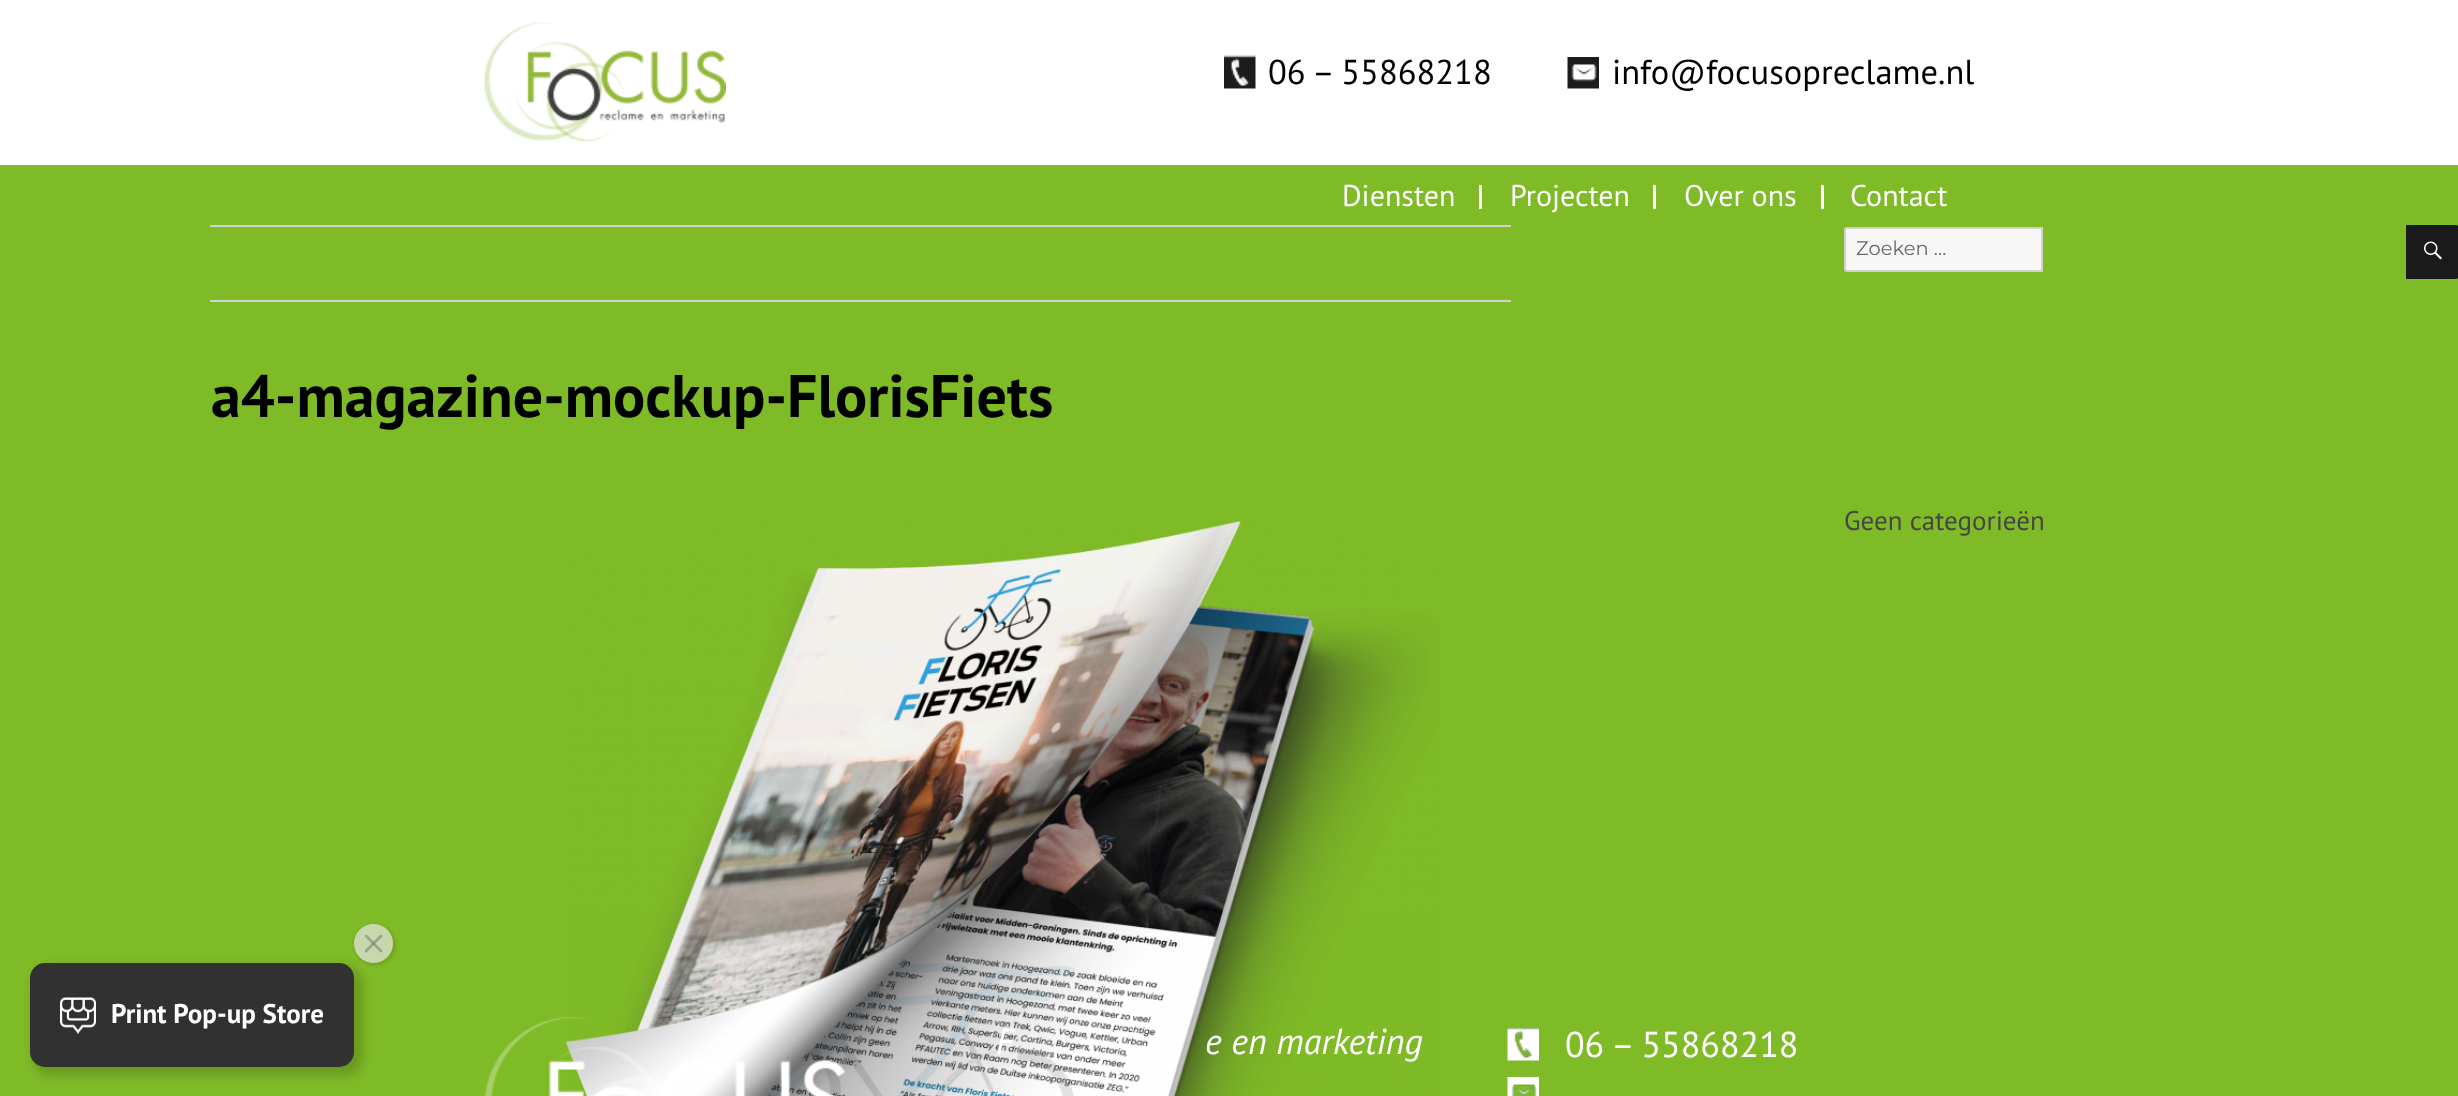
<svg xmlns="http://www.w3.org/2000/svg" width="2458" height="1096">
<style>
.a{font:34.5px PT Sans;fill:#000}
.b{font:30px PT Sans;fill:#fff}
.c{font:bold 60px PT Sans;fill:#000}
.d{font:19.5px Montserrat;fill:#686868}
.e{font:27px PT Sans;fill:#464646}
.f{font:bold 27px PT Sans;fill:#fff}
.g{font:italic 36px PT Sans;fill:#fff}
.h{font:36px PT Sans;fill:#fff}
</style>
<defs>
<clipPath id="clip1"><path d="M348 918h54v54h-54zm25.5 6c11 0 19.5 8.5 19.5 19.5c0 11-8.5 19.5-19.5 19.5c-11 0-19.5-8.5-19.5-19.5c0-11 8.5-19.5 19.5-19.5z" clip-rule="evenodd"/></clipPath>
<clipPath id="clip2"><path d="M365 935h18v18H365z"/></clipPath>
</defs>
<rect width="100%" height="100%" fill="#fff"/>
<image href="1.png" x="484" y="22" width="242" height="120"/>
<image href="2.png" x="1224" y="55" width="32" height="34"/>
<image href="3.png" x="1567" y="57" width="32" height="32"/>
<path fill="#7fba27" d="M0 165h2458v931H0z"/>
<path fill="#fff" d="M1479 185h3v24H1479z"/>
<path fill="#fff" d="M1653 185h3v24H1653z"/>
<path fill="#fff" d="M1821 185h3v24H1821z"/>
<path fill="#d1d1d1" d="M210 225h1301v2H210z"/>
<path fill="#d1d1d1" d="M210 300h1301v2H210z"/>
<image href="4.png" x="565" y="520" width="875" height="576"/>
<path fill="#f7f7f7" stroke="#d1d1d1" stroke-width="2" d="M1847 228h195v43h-195c-1 0-2-1-2-2v-39c0-1 1-2 2-2z"/>
<path fill="#1a1a1a" d="M2406 225h50c1.5 0 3 1.5 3 3v48c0 1.5-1.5 3-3 3h-50z"/>
<image href="5.png" x="2424" y="241" width="18" height="19"/>
<rect fill="#00000029" filter="blur(5px)" x="33" y="966" width="330" height="110" rx="18"/>
<rect fill="#313131" x="30" y="963" width="324" height="104" rx="15"/>
<g clip-path="url(#clip1)">
<rect fill="#0000001a" filter="blur(1.5px)" x="354" y="924" width="42" height="42" rx="21"/>
</g>
<circle fill="#e6e6e6b3" cx="373.5" cy="943.5" r="19.5"/>
<g clip-path="url(#clip2)">
<path fill="none" stroke="#9ca492" stroke-width="3" stroke-linecap="round" d="M366 936l15 15"/>
<path fill="none" stroke="#80808099" stroke-width="3" stroke-linecap="round" d="M366 951l15-15"/>
</g>
<image href="6.png" x="60" y="997" width="36" height="37"/>
<image href="7.png" x="484" y="1016" width="362" height="80"/>
<image href="8.png" x="1507" y="1027" width="32" height="34"/>
<image href="9.png" x="1507" y="1077" width="32" height="19"/>
<text class="a" x="1268" y="84">06 – 55868218</text>
<text class="a" x="1612" y="84">info@focusopreclame.nl</text>
<text class="b" x="1342" y="206">Diensten</text>
<text class="b" x="1510" y="206">Projecten</text>
<text class="b" x="1684" y="206">Over ons</text>
<text class="b" x="1850" y="206">Contact</text>
<text class="c" x="211" y="417">a4-magazine-mockup-FlorisFiets</text>
<text class="d" x="1856" y="255">Zoeken …</text>
<text class="e" x="1844" y="530">Geen categorieën</text>
<text class="f" x="111" y="1023">Print Pop-up Store</text>
<text class="g" x="996" y="1054">F</text>
<text class="g" x="1205" y="1054">e en marketing</text>
<text class="h" x="1565" y="1057">06 – 55868218</text>
</svg>
